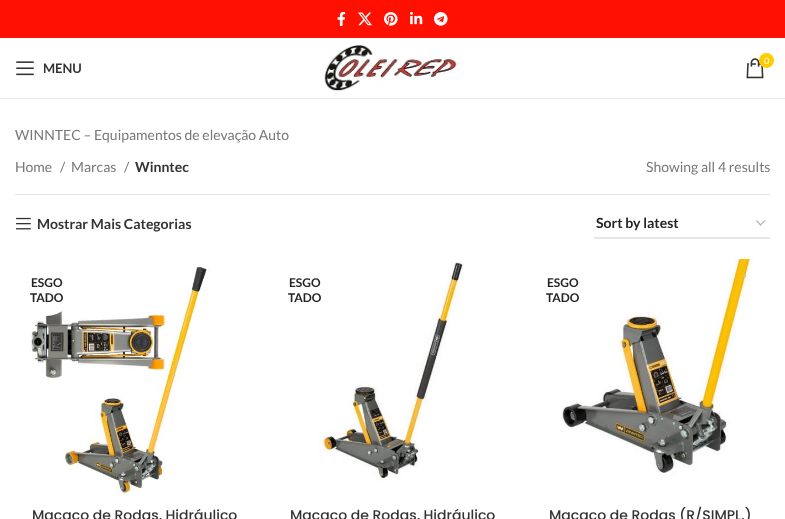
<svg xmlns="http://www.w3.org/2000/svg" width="785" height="519">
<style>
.a{font:9px Lato;fill:#fff}
.b{font:bold 13px Lato;fill:#333}
.c{font:14px Lato;fill:#777}
.d{font:bold 14px Lato;fill:#333}
.e{font:bold 14px Lato;fill:#242424}
.f{font:bold 12px Lato;fill:#242424}
.g{font:500 14px Poppins;fill:#333}
</style>
<rect width="100%" height="100%" fill="#fff"/>
<path fill="#ff1000" d="M0 0h785v38H0z"/>
<image href="1.png" x="337" y="11" width="9" height="15"/>
<image href="2.png" x="358" y="12" width="14" height="14"/>
<image href="3.png" x="384" y="12" width="14" height="14"/>
<image href="4.png" x="410" y="11" width="13" height="14"/>
<image href="5.png" x="434" y="12" width="14" height="14"/>
<path fill="#e8e8e8" d="M0 98h785v1H0z"/>
<image href="6.png" x="324" y="45" width="135" height="46"/>
<image href="7.png" x="746" y="58" width="18" height="21"/>
<circle fill="#fc0" cx="766.5" cy="60.5" r="7.5"/>
<image href="8.png" x="16" y="61" width="18" height="15"/>
<path fill="#e4e4e4" d="M15 194h755v1H15z"/>
<image href="9.png" x="16" y="217" width="15" height="13"/>
<path fill="none" stroke="#bbb" stroke-width="1.4" d="M756.5 220.5l4 4.5l4.5-4.5"/>
<path fill="#e6e6e6" d="M594 237h176v2H594z"/>
<image href="10.png" x="29" y="265" width="181" height="231"/>
<circle fill="#fff" cx="47" cy="291" r="25"/>
<image href="11.png" x="317" y="261" width="147" height="220"/>
<image href="12.png" x="562" y="259" width="191" height="217"/>
<text class="a" x="764" y="64">0</text>
<text class="b" x="43" y="73">MENU</text>
<text class="c" x="15" y="140">WINNTEC – Equipamentos de elevação Auto</text>
<text class="c" x="15" y="172">Home</text>
<text class="c" x="60" y="172">/</text>
<text class="c" x="71" y="172">Marcas</text>
<text class="c" x="124" y="172">/</text>
<text class="d" x="135" y="172">Winntec</text>
<text class="c" x="646" y="172">Showing all 4 results</text>
<text class="d" x="37" y="229">Mostrar Mais Categorias</text>
<text class="e" x="596" y="228">Sort by latest</text>
<text class="f" x="31" y="287">ESGO</text>
<text class="f" x="30" y="302">TADO</text>
<text class="g" x="32" y="520">Macaco de Rodas, Hidráulico</text>
<text class="f" x="289" y="287">ESGO</text>
<text class="f" x="288" y="302">TADO</text>
<text class="g" x="290" y="520">Macaco de Rodas, Hidráulico</text>
<text class="f" x="547" y="287">ESGO</text>
<text class="f" x="546" y="302">TADO</text>
<text class="g" x="549" y="520">Macaco de Rodas (R/SIMPL.)</text>
</svg>
